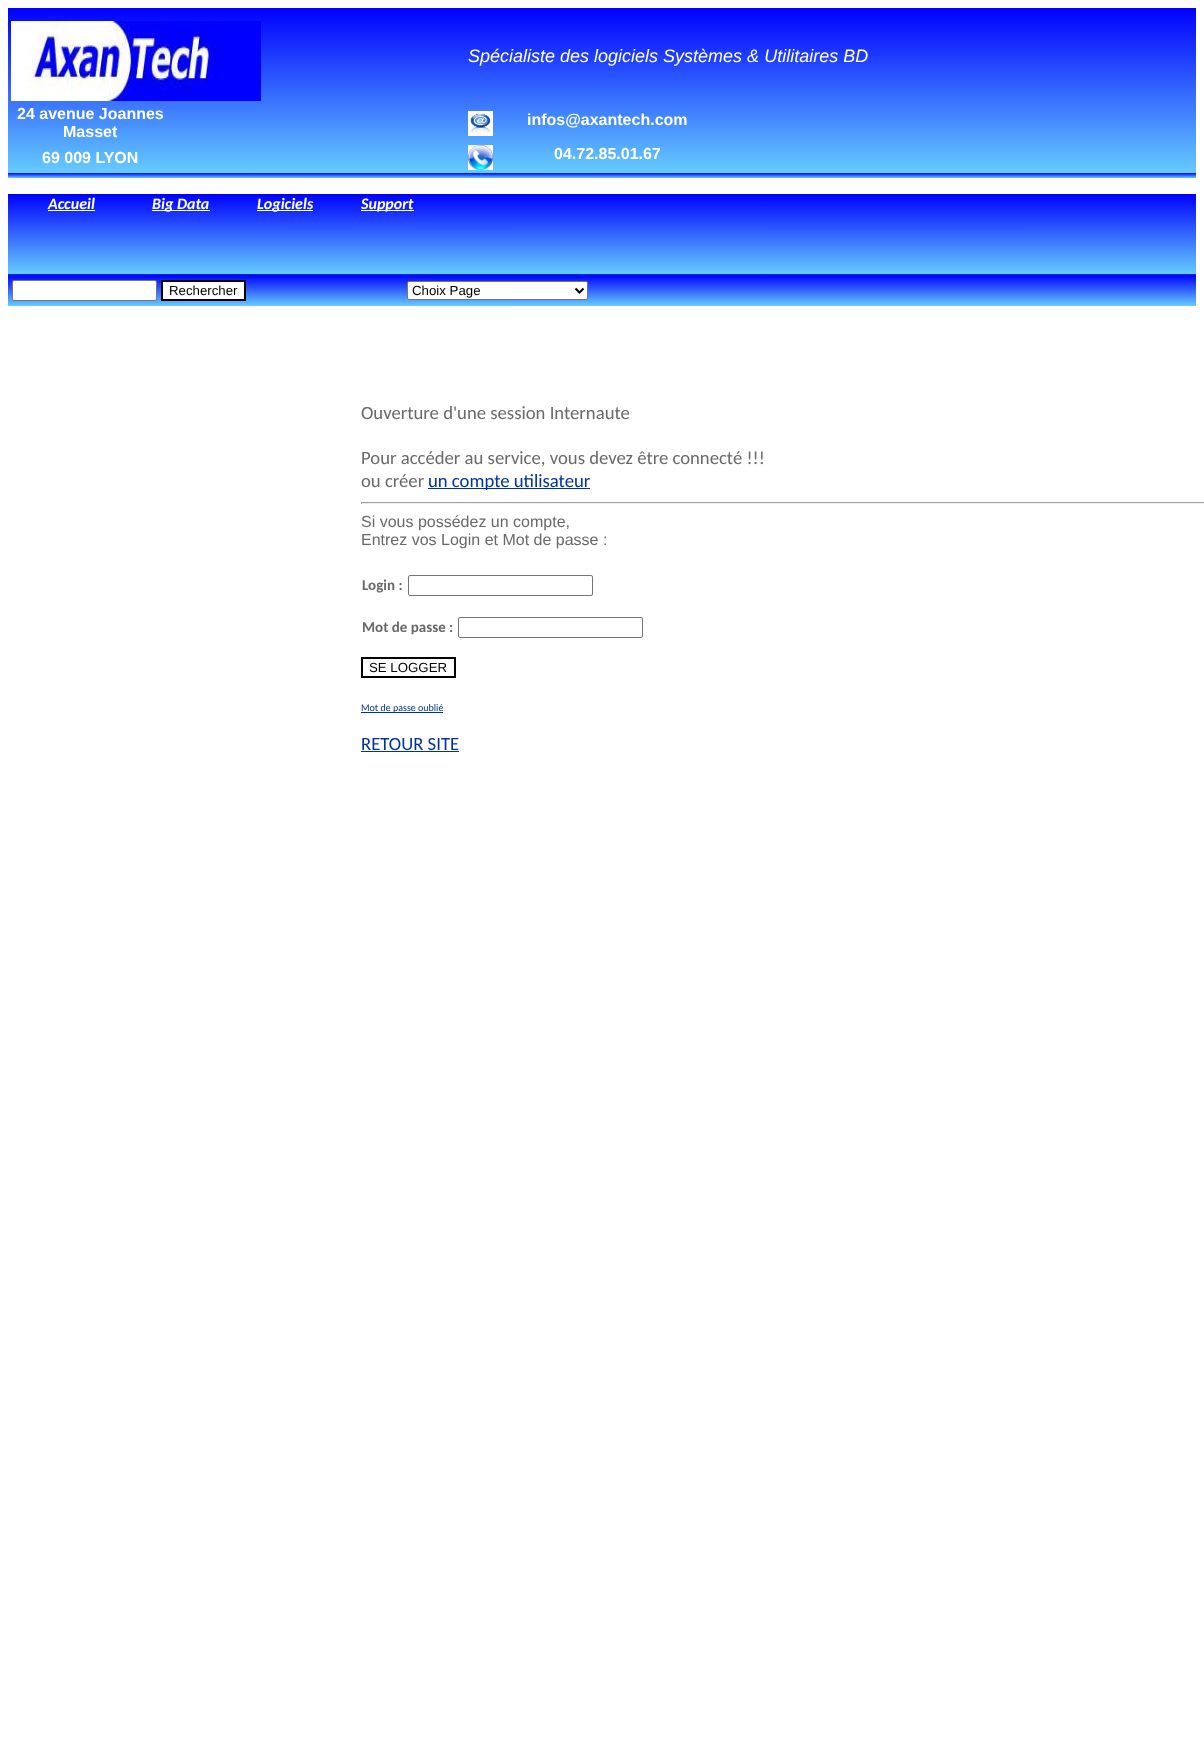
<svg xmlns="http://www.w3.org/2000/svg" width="1204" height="1746">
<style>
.a{font:italic 18px Liberation Sans;fill:#fff}
.b{font:bold 16px Liberation Sans;fill:#fff}
.c{font:italic bold 16px Carlito;fill:#fff}
.d{font:13.25px Liberation Sans;fill:#000}
.e{font:18.7px Carlito;fill:#696969}
.f{font:18.7px Carlito;fill:#039}
.g{font:16px Liberation Sans;fill:#696969}
.h{font:bold 15px Carlito;fill:#696969}
.i{font:10px Carlito;fill:#039}
</style>
<defs>
<linearGradient id="g1" gradientUnits="userSpaceOnUse" x1="602" y1="8" x2="602" y2="173"><stop offset="0" stop-color="#00f"/><stop offset="1" stop-color="#6cf"/></linearGradient>
<linearGradient id="g2" gradientUnits="userSpaceOnUse" x1="602" y1="173" x2="602" y2="178"><stop offset="0" stop-color="#00f"/><stop offset="1" stop-color="#6cf"/></linearGradient>
<linearGradient id="g3" gradientUnits="userSpaceOnUse" x1="602" y1="194" x2="602" y2="274"><stop offset="0" stop-color="#00f"/><stop offset="1" stop-color="#6cf"/></linearGradient>
<linearGradient id="g4" gradientUnits="userSpaceOnUse" x1="602" y1="275" x2="602" y2="306"><stop offset="0" stop-color="#00f"/><stop offset="1" stop-color="#6cf"/></linearGradient>
</defs>
<rect width="100%" height="100%" fill="#fff"/>
<path fill="url(#g1)" d="M8 8h1188v165H8z"/>
<image href="1.png" x="11" y="21" width="250" height="80"/>
<image href="2.png" x="468" y="111" width="25" height="25"/>
<image href="3.png" x="468" y="145" width="25" height="25"/>
<path fill="url(#g2)" d="M8 173h1188v5H8z"/>
<path fill="url(#g3)" d="M8 194h1188v80H8z"/>
<path fill="#03c" d="M8 274h1188v1H8z"/>
<path fill="#fff" d="M48 210h47v1H48z"/>
<path fill="#fff" d="M152 210h58v1H152z"/>
<path fill="#fff" d="M257 210h56v1H257z"/>
<path fill="#fff" d="M361 210h53v1H361z"/>
<path fill="url(#g4)" d="M8 275h1188v31H8z"/>
<rect fill="#fff" stroke="#767676" x="12.5" y="280.5" width="144" height="20" rx="1.5"/>
<path fill="#fff" stroke="#000" stroke-width="2" d="M162 281h83v19H162z"/>
<rect fill="#fff" stroke="#767676" x="407.5" y="281.5" width="180" height="18" rx="1.5"/>
<path fill="none" stroke="#000" stroke-width="2" d="M575.5 288.5l4 4l4-4"/>
<path fill="#039" d="M428 488h162v1H428z"/>
<path fill="#9f9f9f" d="M361 502h843v1H361z"/>
<path fill="#eee" d="M361 503h843v1H361z"/>
<path fill="#9f9f9f" d="M361 502h1v2H361z"/>
<rect fill="none" stroke="#767676" x="408.5" y="575.5" width="184" height="20" rx="1.5"/>
<rect fill="none" stroke="#767676" x="458.5" y="617.5" width="184" height="20" rx="1.5"/>
<path fill="none" stroke="#000" stroke-width="2" d="M362 658h93v19H362z"/>
<path fill="#039" d="M361 712h82v1H361z"/>
<path fill="#039" d="M361 751h98v1H361z"/>
<text class="a" x="468" y="62">Spécialiste des logiciels Systèmes &amp; Utilitaires BD</text>
<text class="b" x="17" y="119">24 avenue Joannes</text>
<text class="b" x="63" y="137">Masset</text>
<text class="b" x="527" y="125">infos@axantech.com</text>
<text class="b" x="42" y="163">69 009 LYON</text>
<text class="b" x="554" y="159">04.72.85.01.67</text>
<text class="c" x="48" y="209">Accueil</text>
<text class="c" x="152" y="209">Big Data</text>
<text class="c" x="257" y="209">Logiciels</text>
<text class="c" x="361" y="209">Support</text>
<text class="d" x="169" y="295">Rechercher</text>
<text class="d" x="412" y="295">Choix Page</text>
<text class="e" x="361" y="419">Ouverture d'une session Internaute</text>
<text class="e" x="361" y="464">Pour accéder au service, vous devez être connecté !!!</text>
<text class="e" x="361" y="487">ou créer</text>
<text class="f" x="428" y="487">un compte utilisateur</text>
<text class="g" x="361" y="527">Si vous possédez un compte,</text>
<text class="g" x="361" y="545">Entrez vos Login et Mot de passe :</text>
<text class="h" x="362" y="590">Login :</text>
<text class="h" x="362" y="632">Mot de passe :</text>
<text class="d" x="369" y="672">SE LOGGER</text>
<text class="i" x="361" y="711">Mot de passe oublié</text>
<text class="f" x="361" y="750">RETOUR SITE</text>
</svg>
